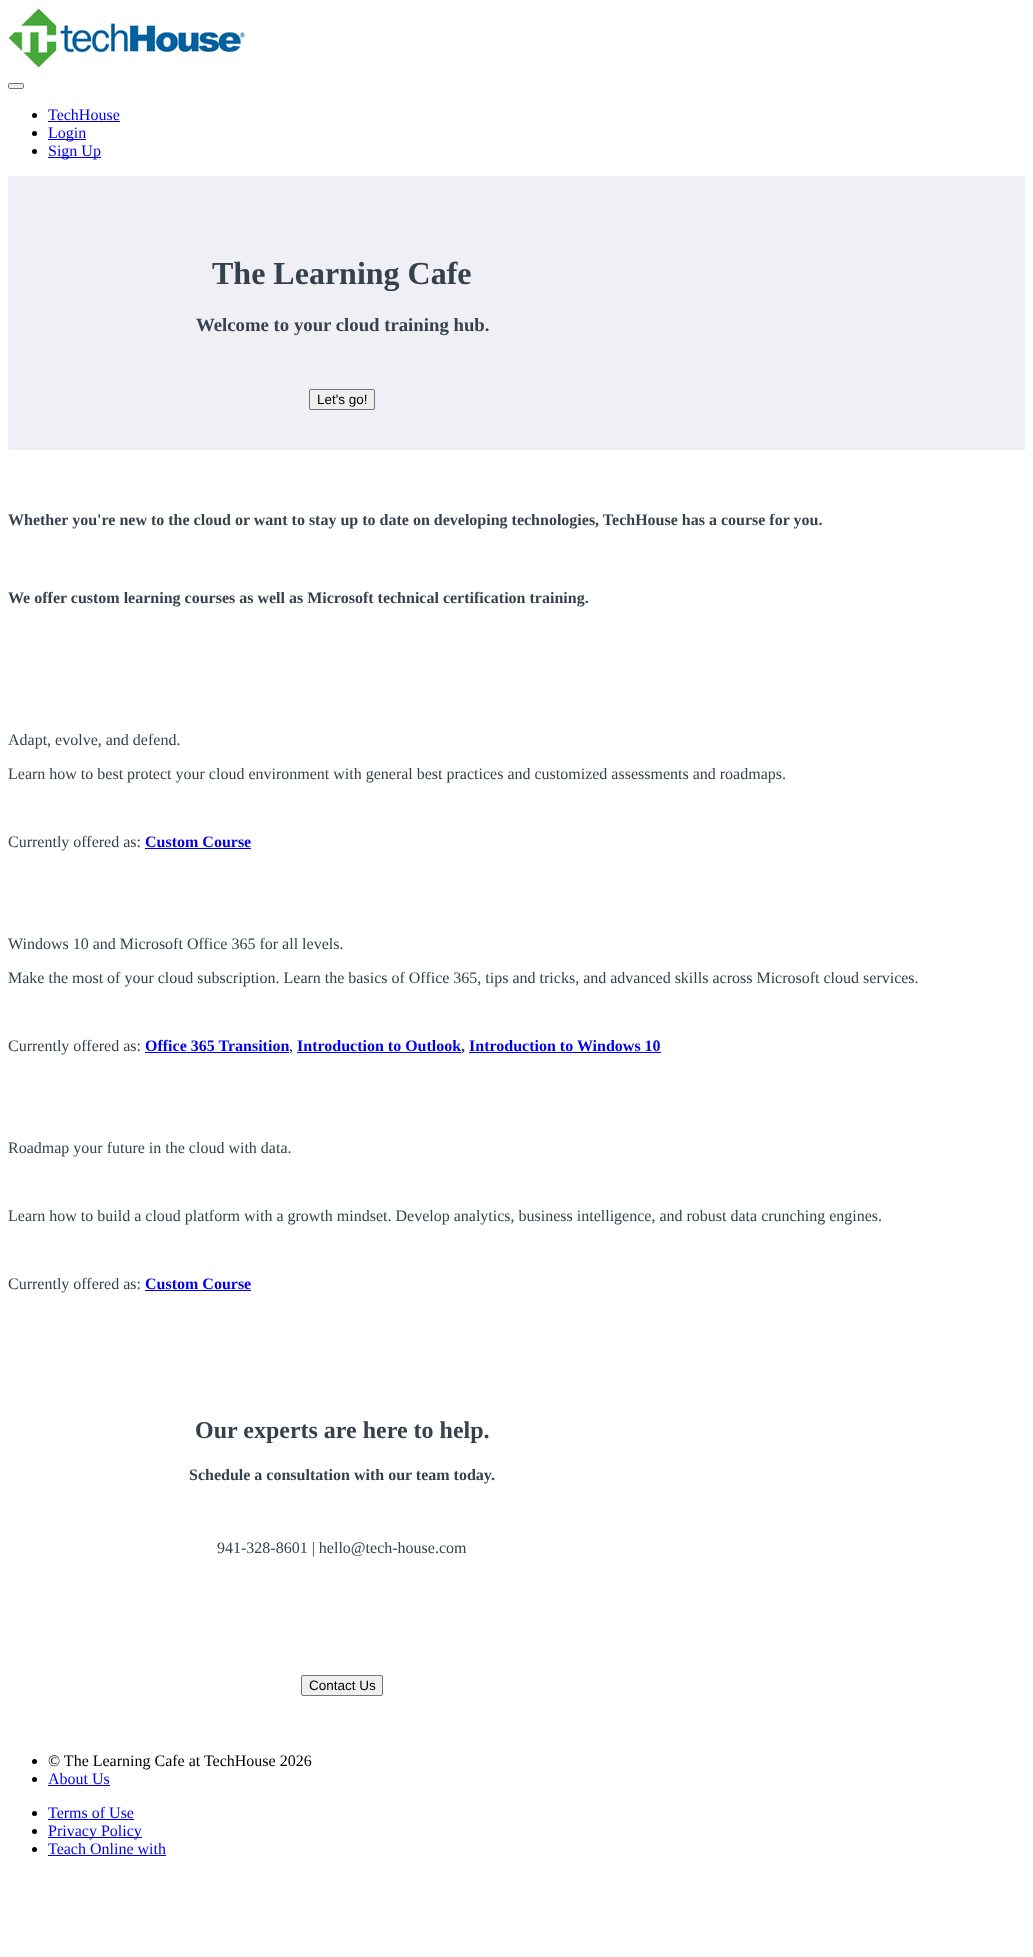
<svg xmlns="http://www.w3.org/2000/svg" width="1033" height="1957">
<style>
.a{font:16px Liberation Serif;fill:#00e}
.b{font:bold 32px Liberation Serif;fill:#36414d}
.c{font:bold 18.75px Liberation Serif;fill:#36414d}
.d{font:13.5px Liberation Sans;fill:#000}
.e{font:bold 16px Liberation Serif;fill:#36414d}
.f{font:16px Liberation Serif;fill:#36414d}
.g{font:bold 16px Liberation Serif;fill:#00e}
.h{font:bold 24px Liberation Serif;fill:#36414d}
.i{font:16px Liberation Serif;fill:#000}
</style>
<rect width="100%" height="100%" fill="#fff"/>
<image href="1.png" x="8" y="8" width="237" height="60"/>
<rect fill="#efefef" stroke="#767676" x="8.5" y="83.5" width="15" height="5" rx="1.5"/>
<circle fill="#000" cx="34.5" cy="115.5" r="2.5"/>
<path fill="#00e" d="M48 121h72v1H48z"/>
<circle fill="#000" cx="34.5" cy="133.5" r="2.5"/>
<path fill="#00e" d="M48 139h38v1H48z"/>
<circle fill="#000" cx="34.5" cy="151.5" r="2.5"/>
<path fill="#00e" d="M48 157h53v1H48z"/>
<path fill="#efeff5" d="M8 176h1017v274H8z"/>
<rect fill="#efefef" stroke="#767676" x="309.5" y="389.5" width="65" height="20" rx="1.5"/>
<path fill="#00e" d="M145 848h106v1H145z"/>
<path fill="#00e" d="M145 1052h144v1H145z"/>
<path fill="#00e" d="M297 1052h164v1H297z"/>
<path fill="#00e" d="M469 1052h192v1H469z"/>
<path fill="#00e" d="M145 1290h106v1H145z"/>
<rect fill="#efefef" stroke="#767676" x="301.5" y="1675.5" width="81" height="20" rx="1.5"/>
<circle fill="#000" cx="34.5" cy="1761.5" r="2.5"/>
<circle fill="#000" cx="34.5" cy="1779.5" r="2.5"/>
<path fill="#00e" d="M48 1785h62v1H48z"/>
<circle fill="#000" cx="34.5" cy="1813.5" r="2.5"/>
<path fill="#00e" d="M48 1819h86v1H48z"/>
<circle fill="#000" cx="34.5" cy="1831.5" r="2.5"/>
<path fill="#00e" d="M48 1837h94v1H48z"/>
<circle fill="#000" cx="34.5" cy="1849.5" r="2.5"/>
<path fill="#00e" d="M48 1855h118v1H48z"/>
<text class="a" x="48" y="120">TechHouse</text>
<text class="a" x="48" y="138">Login</text>
<text class="a" x="48" y="156">Sign Up</text>
<text class="b" x="212" y="284">The Learning Cafe</text>
<text class="c" x="196" y="331">Welcome to your cloud training hub.</text>
<text class="d" x="317" y="404">Let's go!</text>
<text class="e" x="8" y="525">Whether you're new to the cloud or want to stay up to date on developing technologies, TechHouse has a course for you.</text>
<text class="e" x="8" y="603">We offer custom learning courses as well as Microsoft technical certification training.</text>
<text class="f" x="8" y="745">Adapt, evolve, and defend.</text>
<text class="f" x="8" y="779">Learn how to best protect your cloud environment with general best practices and customized assessments and roadmaps.</text>
<text class="f" x="8" y="847">Currently offered as:</text>
<text class="g" x="145" y="847">Custom Course</text>
<text class="f" x="8" y="949">Windows 10 and Microsoft Office 365 for all levels.</text>
<text class="f" x="8" y="983">Make the most of your cloud subscription. Learn the basics of Office 365, tips and tricks, and advanced skills across Microsoft cloud services.</text>
<text class="f" x="8" y="1051">Currently offered as:</text>
<text class="g" x="145" y="1051">Office 365 Transition</text>
<text class="f" x="289" y="1051">,</text>
<text class="g" x="297" y="1051">Introduction to Outlook</text>
<text class="e" x="461" y="1051">,</text>
<text class="g" x="469" y="1051">Introduction to Windows 10</text>
<text class="f" x="8" y="1153">Roadmap your future in the cloud with data.</text>
<text class="f" x="8" y="1221">Learn how to build a cloud platform with a growth mindset. Develop analytics, business intelligence, and robust data crunching engines.</text>
<text class="f" x="8" y="1289">Currently offered as:</text>
<text class="g" x="145" y="1289">Custom Course</text>
<text class="h" x="195" y="1438">Our experts are here to help.</text>
<text class="e" x="189" y="1480">Schedule a consultation with our team today.</text>
<text class="f" x="217" y="1553">941-328-8601 | hello@tech-house.com</text>
<text class="d" x="309" y="1690">Contact Us</text>
<text class="i" x="48" y="1766">© The Learning Cafe at TechHouse 2026</text>
<text class="a" x="48" y="1784">About Us</text>
<text class="a" x="48" y="1818">Terms of Use</text>
<text class="a" x="48" y="1836">Privacy Policy</text>
<text class="a" x="48" y="1854">Teach Online with</text>
</svg>
